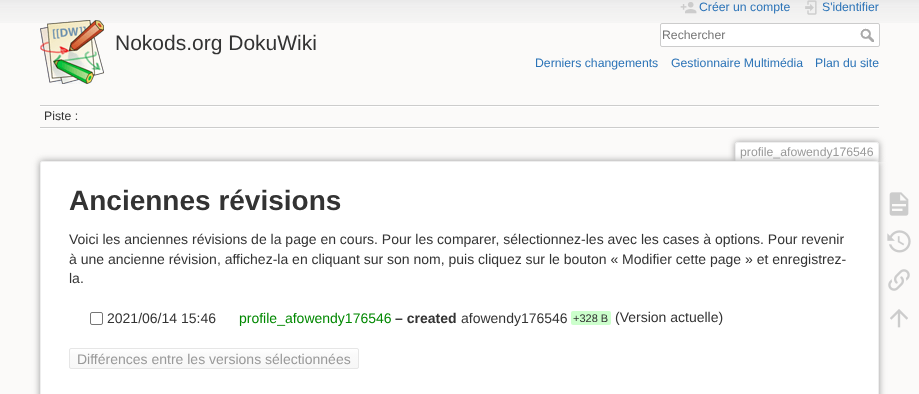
<svg xmlns="http://www.w3.org/2000/svg" width="919" height="394">
<style>
.a{font:21px Liberation Sans;fill:#333}
.b{font:12.25px Liberation Sans;fill:#2b73b7}
.c{font:12.25px Liberation Sans;fill:#757575}
.d{font:12.25px Liberation Sans;fill:#333}
.e{font:12.25px Liberation Sans;fill:#999}
.f{font:bold 28px Liberation Sans;fill:#333}
.g{font:14px Liberation Sans;fill:#333}
.h{font:14px Liberation Sans;fill:#080}
.i{font:bold 14px Liberation Sans;fill:#333}
.j{font:11px Liberation Sans;fill:#333}
.k{font:14px Liberation Sans;fill:#999}
</style>
<defs>
<clipPath id="clip1"><path d="M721 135h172v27H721z"/></clipPath>
<clipPath id="clip2"><rect x="69" y="348" width="290" height="21" rx="2"/></clipPath>
<linearGradient id="g1" gradientUnits="userSpaceOnUse" x1="214" y1="349" x2="214" y2="368"><stop offset="0" stop-color="#fff"/><stop offset="0.3" stop-color="#fafafa"/><stop offset="0.99" stop-color="#f7f7f7"/><stop offset="0.99" stop-color="#e6e6e6"/></linearGradient>
</defs>
<rect width="100%" height="100%" fill="#fbfaf9"/>
<image href="1.png" x="0" y="0" width="919" height="23"/>
<image href="2.png" x="40" y="20" width="64" height="64"/>
<image href="3.png" x="680" y="2" width="17" height="12"/>
<image href="4.png" x="805" y="0" width="12" height="15"/>
<rect fill="#fff" stroke="#ccc" x="660.5" y="23.5" width="219" height="23" rx="1.5"/>
<image href="5.png" x="860" y="28" width="14" height="14"/>
<path fill="#ccc" d="M40 105h839v1H40z"/>
<path fill="#fff" d="M40 128h839v1H40z"/>
<path fill="#fff" d="M40 106h839v1H40z"/>
<path fill="#ccc" d="M40 127h839v1H40z"/>
<g clip-path="url(#clip1)">
<rect fill="#999" filter="blur(3px)" x="735" y="142" width="144" height="20" rx="2"/>
</g>
<path fill="#fff" d="M737 143h140c.5 0 1 .5 1 1v18h-142v-18c0-.5 .5-1 1-1z"/>
<path fill="#eee" d="M736 142h142v1H736z"/>
<path fill="#eee" d="M878 143h1v19H878z"/>
<path fill="#eee" d="M735 143h1v19H735z"/>
<rect fill="#999" filter="blur(3.5px)" x="40" y="161" width="839" height="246" rx="2"/>
<rect fill="#fff" stroke="#eee" x="40.5" y="161.5" width="838" height="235" rx="1.5"/>
<rect fill="none" stroke="#767676" x="90.5" y="312.5" width="12" height="12" rx="1.5"/>
<rect fill="#cfc" x="571" y="311" width="40" height="14" rx="2"/>
<g clip-path="url(#clip2)">
<path fill="url(#g1)" d="M69 349h290v19H69z"/>
</g>
<rect fill="none" stroke="#e6e6e6" x="69.5" y="348.5" width="289" height="20" rx="1.5"/>
<image href="6.png" x="889" y="192" width="20" height="24"/>
<image href="7.png" x="887" y="230" width="24" height="23"/>
<image href="8.png" x="888" y="269" width="22" height="22"/>
<image href="9.png" x="890" y="309" width="18" height="19"/>
<text class="a" x="115" y="50">Nokods.org DokuWiki</text>
<text class="b" x="699" y="11">Créer un compte</text>
<text class="b" x="822" y="11">S'identifier</text>
<text class="c" x="662" y="39">Rechercher</text>
<text class="b" x="535" y="67">Derniers changements</text>
<text class="b" x="671" y="67">Gestionnaire Multimédia</text>
<text class="b" x="815" y="67">Plan du site</text>
<text class="d" x="44" y="120">Piste :</text>
<text class="e" x="740" y="156">profile_afowendy176546</text>
<text class="f" x="69" y="210">Anciennes révisions</text>
<text class="g" x="69" y="244">Voici les anciennes révisions de la page en cours. Pour les comparer, sélectionnez-les avec les cases à options. Pour revenir</text>
<text class="g" x="69" y="264">à une ancienne révision, affichez-la en cliquant sur son nom, puis cliquez sur le bouton « Modifier cette page » et enregistrez-</text>
<text class="g" x="69" y="283">la.</text>
<text class="g" x="107" y="323">2021/06/14 15:46</text>
<text class="h" x="239" y="323">profile_afowendy176546</text>
<text class="i" x="395" y="323">– created</text>
<text class="g" x="461" y="323">afowendy176546</text>
<text class="j" x="573" y="322">+328 B</text>
<text class="g" x="615" y="322">(Version actuelle)</text>
<text class="k" x="77" y="364">Différences entre les versions sélectionnées</text>
</svg>
